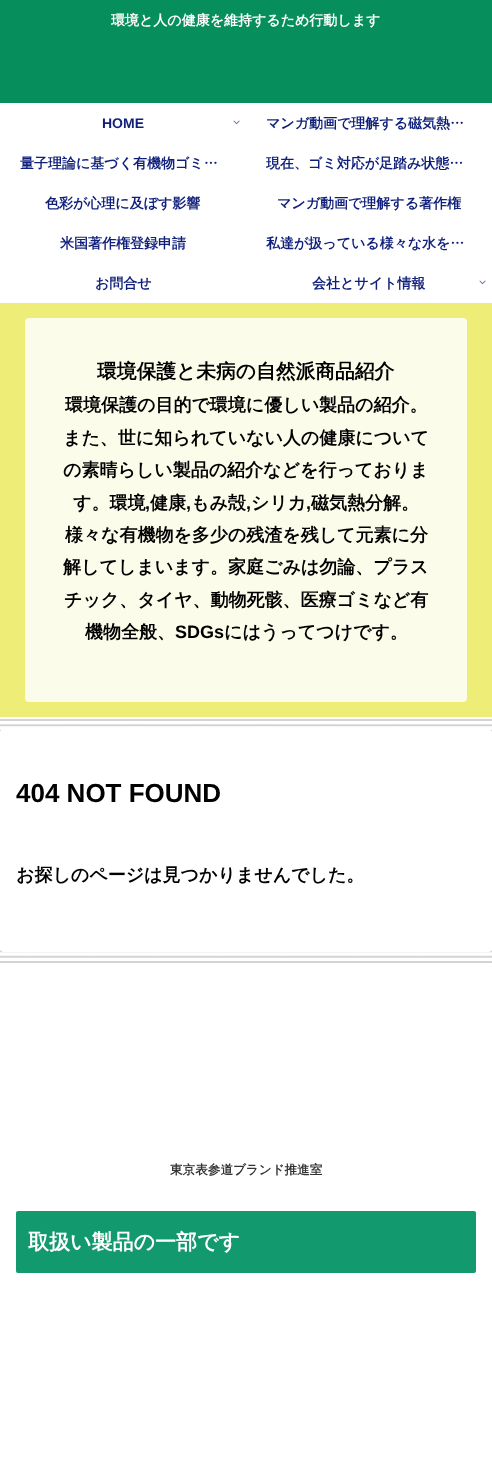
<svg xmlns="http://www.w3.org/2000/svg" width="492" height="1475">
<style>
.a{font:bold 14px WenQuanYi Zen Hei;fill:#fff}
.b{font:bold 14px Liberation Sans;fill:#0f1f7a}
.c{font:bold 14px WenQuanYi Zen Hei;fill:#0f1f7a}
.d{font:bold 19.75px WenQuanYi Zen Hei;fill:#000}
.e{font:bold 18px WenQuanYi Zen Hei;fill:#000}
.f{font:bold 18px Liberation Sans;fill:#000}
.g{font:bold 26px Liberation Sans;fill:#000}
.h{font:bold 12.6px WenQuanYi Zen Hei;fill:#333}
.i{font:bold 21px WenQuanYi Zen Hei;fill:#fff}
</style>
<defs>
<clipPath id="clip1"><path d="M266 143h206v40H266z"/></clipPath>
</defs>
<rect width="100%" height="100%" fill="#fff"/>
<image href="1.png" x="0" y="717" width="492" height="251"/>
<path fill="#078e5d" d="M0 0h492v103H0z"/>
<image href="2.png" x="233" y="120" width="7" height="5"/>
<image href="2.png" x="479" y="280" width="7" height="5"/>
<path fill="#eded78" d="M0 303h492v414H0z"/>
<rect fill="#fcfceb" x="25" y="318" width="442" height="384" rx="4"/>
<rect fill="#fff" y="729" width="492" height="223" rx="4"/>
<rect fill="#fff" y="964" width="492" height="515" rx="4"/>
<rect fill="#13996e" x="16" y="1211" width="460" height="62" rx="2"/>
<text class="a" x="111" y="25">環境と人の健康を維持するため行動します</text>
<text class="b" x="102" y="128">HOME</text>
<text class="c" x="266" y="128">マンガ動画で理解する磁気熱…</text>
<text class="c" x="20" y="168">量子理論に基づく有機物ゴミ…</text>
<g clip-path="url(#clip1)">
<text class="c" x="266" y="168">現在、ゴミ対応が足踏み状態…</text>
</g>
<text class="c" x="45" y="208">色彩が心理に及ぼす影響</text>
<text class="c" x="277" y="208">マンガ動画で理解する著作権</text>
<text class="c" x="60" y="248">米国著作権登録申請</text>
<text class="c" x="266" y="248">私達が扱っている様々な水を…</text>
<text class="c" x="95" y="288">お問合せ</text>
<text class="c" x="312" y="288">会社とサイト情報</text>
<text class="d" x="97" y="378">環境保護と未病の自然派商品紹介</text>
<text class="e" x="65" y="411">環境保護の目的で環境に優しい製品の紹介。</text>
<text class="e" x="63" y="444">また、世に知られていない人の健康について</text>
<text class="e" x="63" y="476">の素晴らしい製品の紹介などを行っておりま</text>
<text class="e" x="73" y="509">す。環境</text>
<text class="f" x="145" y="509">,</text>
<text class="e" x="150" y="509">健康</text>
<text class="f" x="186" y="509">,</text>
<text class="e" x="191" y="509">もみ殻</text>
<text class="f" x="246" y="509">,</text>
<text class="e" x="251" y="509">シリカ</text>
<text class="f" x="306" y="509">,</text>
<text class="e" x="311" y="509">磁気熱分解。</text>
<text class="e" x="65" y="541">様々な有機物を多少の残渣を残して元素に分</text>
<text class="e" x="63" y="573">解してしまいます。家庭ごみは勿論、プラス</text>
<text class="e" x="64" y="606">チック、タイヤ、動物死骸、医療ゴミなど有</text>
<text class="e" x="85" y="638">機物全般、</text>
<text class="f" x="175" y="638">SDGs</text>
<text class="e" x="224" y="638">にはうってつけです。</text>
<text class="g" x="16" y="802">404 NOT FOUND</text>
<text class="e" x="16" y="881">お探しのページは見つかりませんでした。</text>
<text class="h" x="170" y="1174">東京表参道ブランド推進室</text>
<text class="i" x="28" y="1249">取扱い製品の一部です</text>
</svg>
